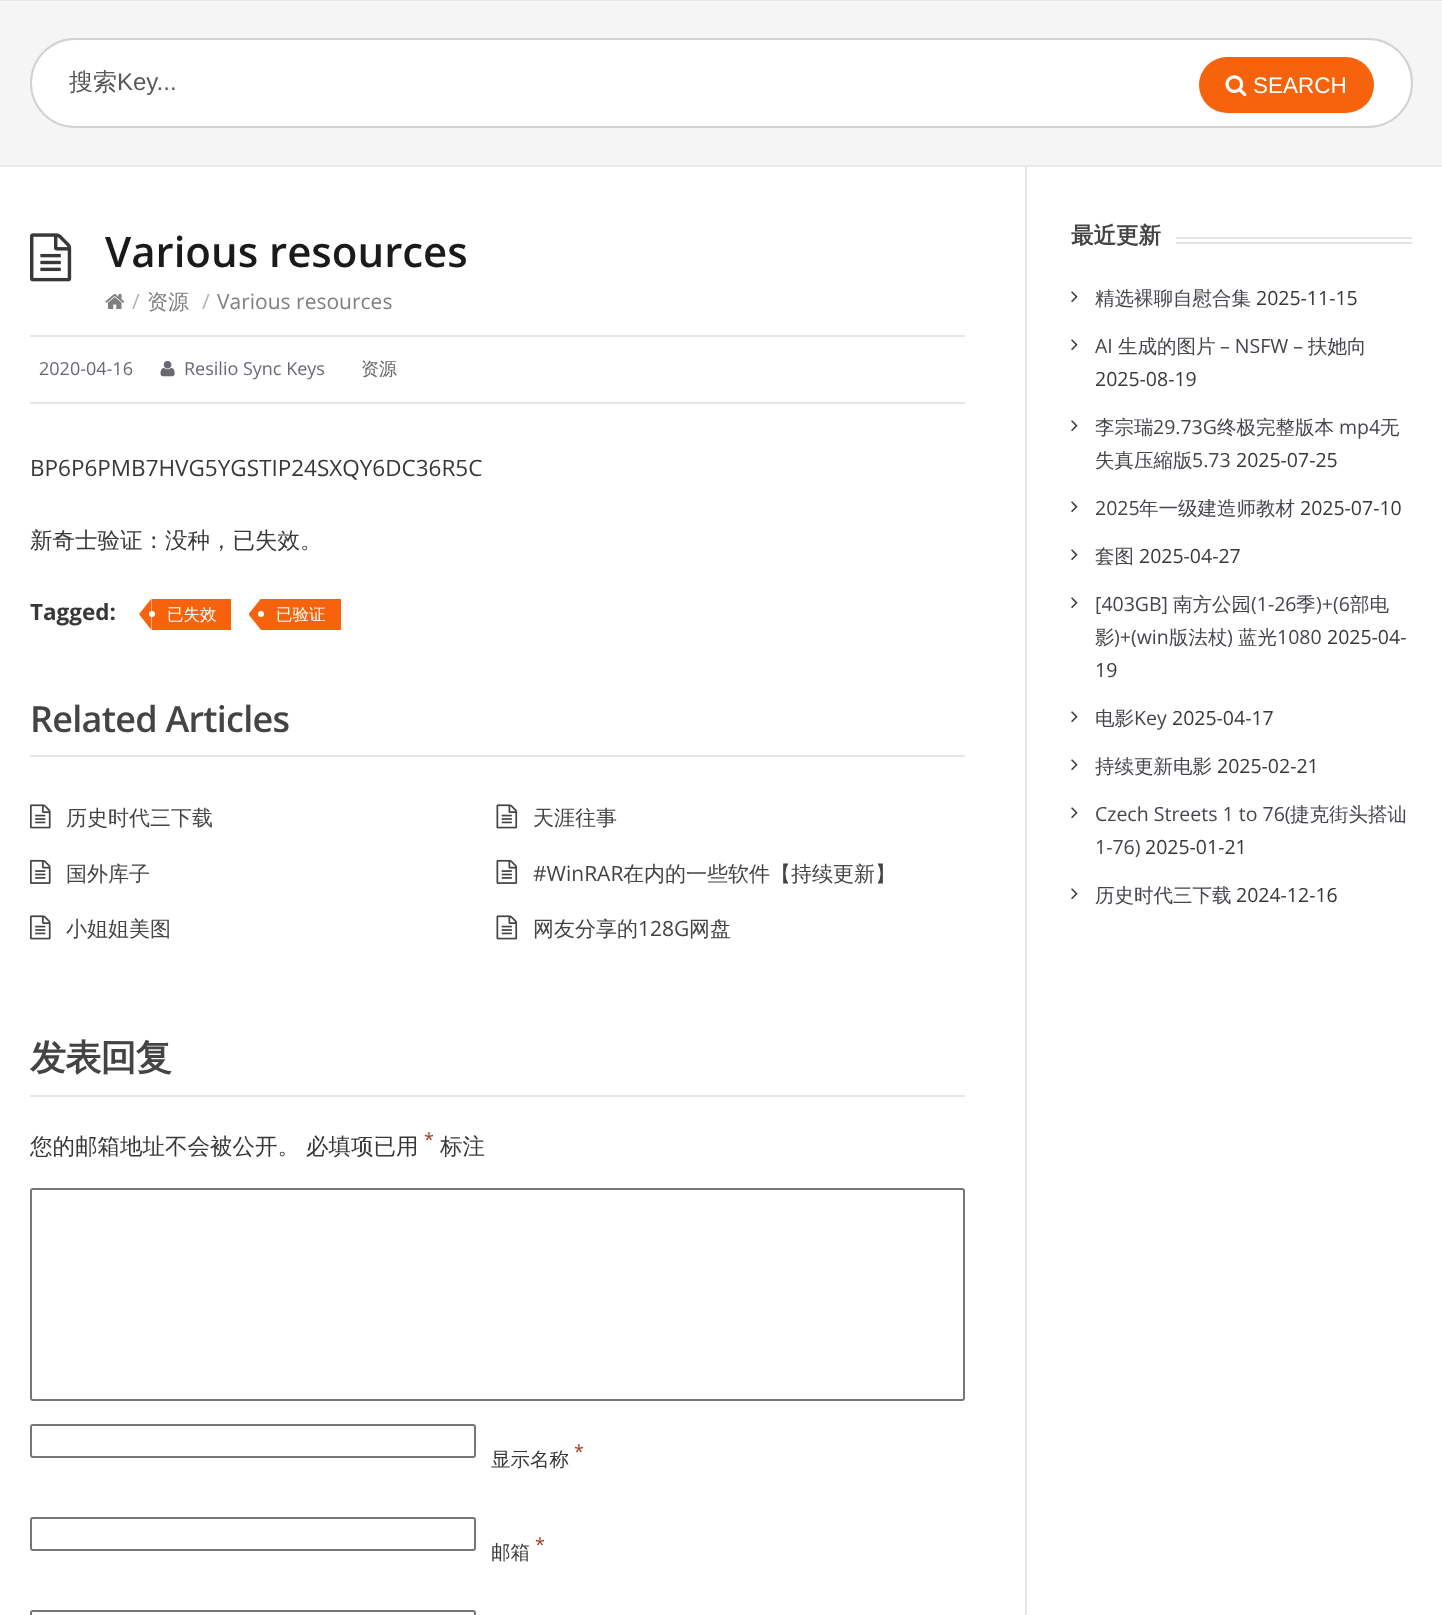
<svg xmlns="http://www.w3.org/2000/svg" width="1442" height="1615">
<style>
.a{font:500 24px WenQuanYi Zen Hei;fill:#595959}
.b{font:24px Liberation Sans;fill:#595959}
.c{font:22.5px Liberation Sans;fill:#fff}
.d{font:600 42px Open Sans;fill:#1a1a1a}
.e{font:21px Open Sans;fill:#b3b3b3}
.f{font:500 21px WenQuanYi Zen Hei;fill:#808080}
.g{font:21px Open Sans;fill:#808080}
.h{font:18px Open Sans;fill:#6b6773}
.i{font:500 18px WenQuanYi Zen Hei;fill:#666}
.j{font:22.5px Open Sans;fill:#383838}
.k{font:500 22.5px WenQuanYi Zen Hei;fill:#383838}
.l{font:bold 22.5px Open Sans;fill:#383838}
.m{font:500 16.5px WenQuanYi Zen Hei;fill:#fff}
.n{font:600 36px Open Sans;letter-spacing:-0.75px;fill:#444}
.o{font:500 21px WenQuanYi Zen Hei;fill:#444}
.p{font:21px Open Sans;fill:#444}
.q{font:bold 36px WenQuanYi Zen Hei;letter-spacing:-0.75px;fill:#444}
.r{font:18px Open Sans;fill:#a03717}
.s{font:500 19.5px WenQuanYi Zen Hei;fill:#383838}
.t{font:bold 22.5px WenQuanYi Zen Hei;fill:#444}
.u{font:500 19.5px WenQuanYi Zen Hei;fill:#45454c}
.v{font:19.5px Open Sans;fill:#383838}
.w{font:19.5px Open Sans;fill:#45454c}
</style>
<rect width="100%" height="100%" fill="#fff"/>
<path fill="#f5f5f5" d="M0 1h1442v164H0z"/>
<path fill="#e8e8e8" d="M0 0h1442v1H0z"/>
<path fill="#e8e8e8" d="M0 165h1442v2H0z"/>
<rect fill="#fff" stroke="#d1d1d1" stroke-width="2" x="31" y="39" width="1381" height="88" rx="44"/>
<rect fill="#f7630c" x="1199" y="57" width="175" height="56" rx="28"/>
<image href="1.png" x="1225" y="75" width="22" height="22"/>
<path fill="#e6e6e6" d="M1025 167h2v1448H1025z"/>
<path fill="#e6e6e6" d="M30 335h935v2H30z"/>
<image href="2.png" x="30" y="233" width="42" height="49"/>
<image href="3.png" x="105" y="294" width="20" height="15"/>
<path fill="#e6e6e6" d="M30 402h935v2H30z"/>
<image href="4.png" x="160" y="360" width="15" height="17"/>
<path fill="#f7630c" d="M152 599h79v31H152z"/>
<path fill="#f7630c" d="M151.5 598.5v31.5l-12-15v-1.5z"/>
<circle fill="#fff" cx="152" cy="614" r="3"/>
<path fill="#f7630c" d="M261 599h80v31H261z"/>
<path fill="#f7630c" d="M261 598.5v31.5l-12-15v-1.5z"/>
<circle fill="#fff" cx="261" cy="614" r="3"/>
<path fill="#e6e6e6" d="M30 755h935v2H30z"/>
<image href="5.png" x="30" y="804" width="21" height="25"/>
<image href="6.png" x="496" y="804" width="22" height="25"/>
<image href="7.png" x="30" y="859" width="21" height="25"/>
<image href="8.png" x="496" y="859" width="22" height="25"/>
<image href="5.png" x="30" y="915" width="21" height="25"/>
<image href="6.png" x="496" y="915" width="22" height="25"/>
<path fill="#e6e6e6" d="M30 1095h935v2H30z"/>
<rect fill="none" stroke="#767676" stroke-width="2" x="31" y="1189" width="933" height="211" rx="2"/>
<rect fill="none" stroke="#767676" stroke-width="2" x="31" y="1425" width="444" height="32" rx="2"/>
<rect fill="none" stroke="#767676" stroke-width="2" x="31" y="1518" width="444" height="32" rx="2"/>
<rect fill="none" stroke="#767676" stroke-width="2" x="31" y="1611" width="444" height="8" rx="2"/>
<path fill="#e5e5e5" d="M1176 237h236v2H1176z"/>
<path fill="#e5e5e5" d="M1176 242h236v2H1176z"/>
<image href="9.png" x="1071" y="291" width="7" height="12"/>
<image href="9.png" x="1071" y="339" width="7" height="12"/>
<image href="9.png" x="1071" y="420" width="7" height="12"/>
<image href="9.png" x="1071" y="501" width="7" height="12"/>
<image href="9.png" x="1071" y="549" width="7" height="12"/>
<image href="9.png" x="1071" y="597" width="7" height="12"/>
<image href="9.png" x="1071" y="711" width="7" height="12"/>
<image href="9.png" x="1071" y="759" width="7" height="12"/>
<image href="9.png" x="1071" y="807" width="7" height="12"/>
<image href="9.png" x="1071" y="888" width="7" height="12"/>
<text class="a" x="69" y="90">搜索</text>
<text class="b" x="117" y="90">Key...</text>
<text class="c" x="1253" y="93">SEARCH</text>
<text class="d" x="105" y="267">Various resources</text>
<text class="e" x="132" y="309">/</text>
<text class="f" x="147" y="309">资源</text>
<text class="e" x="202" y="309">/</text>
<text class="g" x="217" y="309">Various resources</text>
<text class="h" x="39" y="375">2020-04-16</text>
<text class="h" x="184" y="375">Resilio Sync Keys</text>
<text class="i" x="361" y="375">资源</text>
<text class="j" x="30" y="476">BP6P6PMB7HVG5YGSTIP24SXQY6DC36R5C</text>
<text class="k" x="30" y="548">新奇士验证：没种，已失效。</text>
<text class="l" x="30" y="620">Tagged:</text>
<text class="m" x="167" y="620">已失效</text>
<text class="m" x="276" y="620">已验证</text>
<text class="n" x="30" y="732">Related Articles</text>
<text class="o" x="66" y="825">历史时代三下载</text>
<text class="o" x="533" y="825">天涯往事</text>
<text class="o" x="66" y="881">国外库子</text>
<text class="p" x="533" y="881">#WinRAR</text>
<text class="o" x="623" y="881">在内的一些软件【持续更新】</text>
<text class="o" x="66" y="936">小姐姐美图</text>
<text class="o" x="533" y="936">网友分享的</text>
<text class="p" x="638" y="936">128G</text>
<text class="o" x="689" y="936">网盘</text>
<text class="q" x="30" y="1070">发表回复</text>
<text class="k" x="30" y="1154">您的邮箱地址不会被公开。</text>
<text class="k" x="306" y="1154">必填项已用</text>
<text class="r" x="424" y="1146">*</text>
<text class="k" x="440" y="1154">标注</text>
<text class="r" x="574" y="1458">*</text>
<text class="s" x="491" y="1466">显示名称</text>
<text class="r" x="535" y="1551">*</text>
<text class="s" x="491" y="1559">邮箱</text>
<text class="t" x="1071" y="243">最近更新</text>
<text class="u" x="1095" y="305">精选裸聊自慰合集</text>
<text class="v" x="1256" y="305">2025-11-15</text>
<text class="w" x="1095" y="353">AI</text>
<text class="u" x="1118" y="353">生成的图片</text>
<text class="w" x="1220" y="353">– NSFW –</text>
<text class="u" x="1308" y="353">扶她向</text>
<text class="v" x="1095" y="386">2025-08-19</text>
<text class="u" x="1095" y="434">李宗瑞</text>
<text class="w" x="1153" y="434">29.73G</text>
<text class="u" x="1217" y="434">终极完整版本</text>
<text class="w" x="1339" y="434">mp4</text>
<text class="u" x="1380" y="434">无</text>
<text class="u" x="1095" y="467">失真压縮版</text>
<text class="w" x="1192" y="467">5.73</text>
<text class="v" x="1236" y="467">2025-07-25</text>
<text class="w" x="1095" y="515">2025</text>
<text class="u" x="1139" y="515">年一级建造师教材</text>
<text class="v" x="1300" y="515">2025-07-10</text>
<text class="u" x="1095" y="563">套图</text>
<text class="v" x="1139" y="563">2025-04-27</text>
<text class="w" x="1095" y="611">[403GB]</text>
<text class="u" x="1173" y="611">南方公园</text>
<text class="w" x="1251" y="611">(1-26</text>
<text class="u" x="1296" y="611">季</text>
<text class="w" x="1316" y="611">)+(6</text>
<text class="u" x="1350" y="611">部电</text>
<text class="u" x="1095" y="644">影</text>
<text class="w" x="1114" y="644">)+(win</text>
<text class="u" x="1169" y="644">版法杖</text>
<text class="w" x="1227" y="644">)</text>
<text class="u" x="1238" y="644">蓝光</text>
<text class="w" x="1277" y="644">1080</text>
<text class="v" x="1327" y="644">2025-04-</text>
<text class="v" x="1095" y="677">19</text>
<text class="u" x="1095" y="725">电影</text>
<text class="w" x="1134" y="725">Key</text>
<text class="v" x="1172" y="725">2025-04-17</text>
<text class="u" x="1095" y="773">持续更新电影</text>
<text class="v" x="1217" y="773">2025-02-21</text>
<text class="w" x="1095" y="821">Czech Streets 1 to 76(</text>
<text class="u" x="1290" y="821">捷克街头搭讪</text>
<text class="w" x="1095" y="854">1-76)</text>
<text class="v" x="1145" y="854">2025-01-21</text>
<text class="u" x="1095" y="902">历史时代三下载</text>
<text class="v" x="1236" y="902">2024-12-16</text>
</svg>
